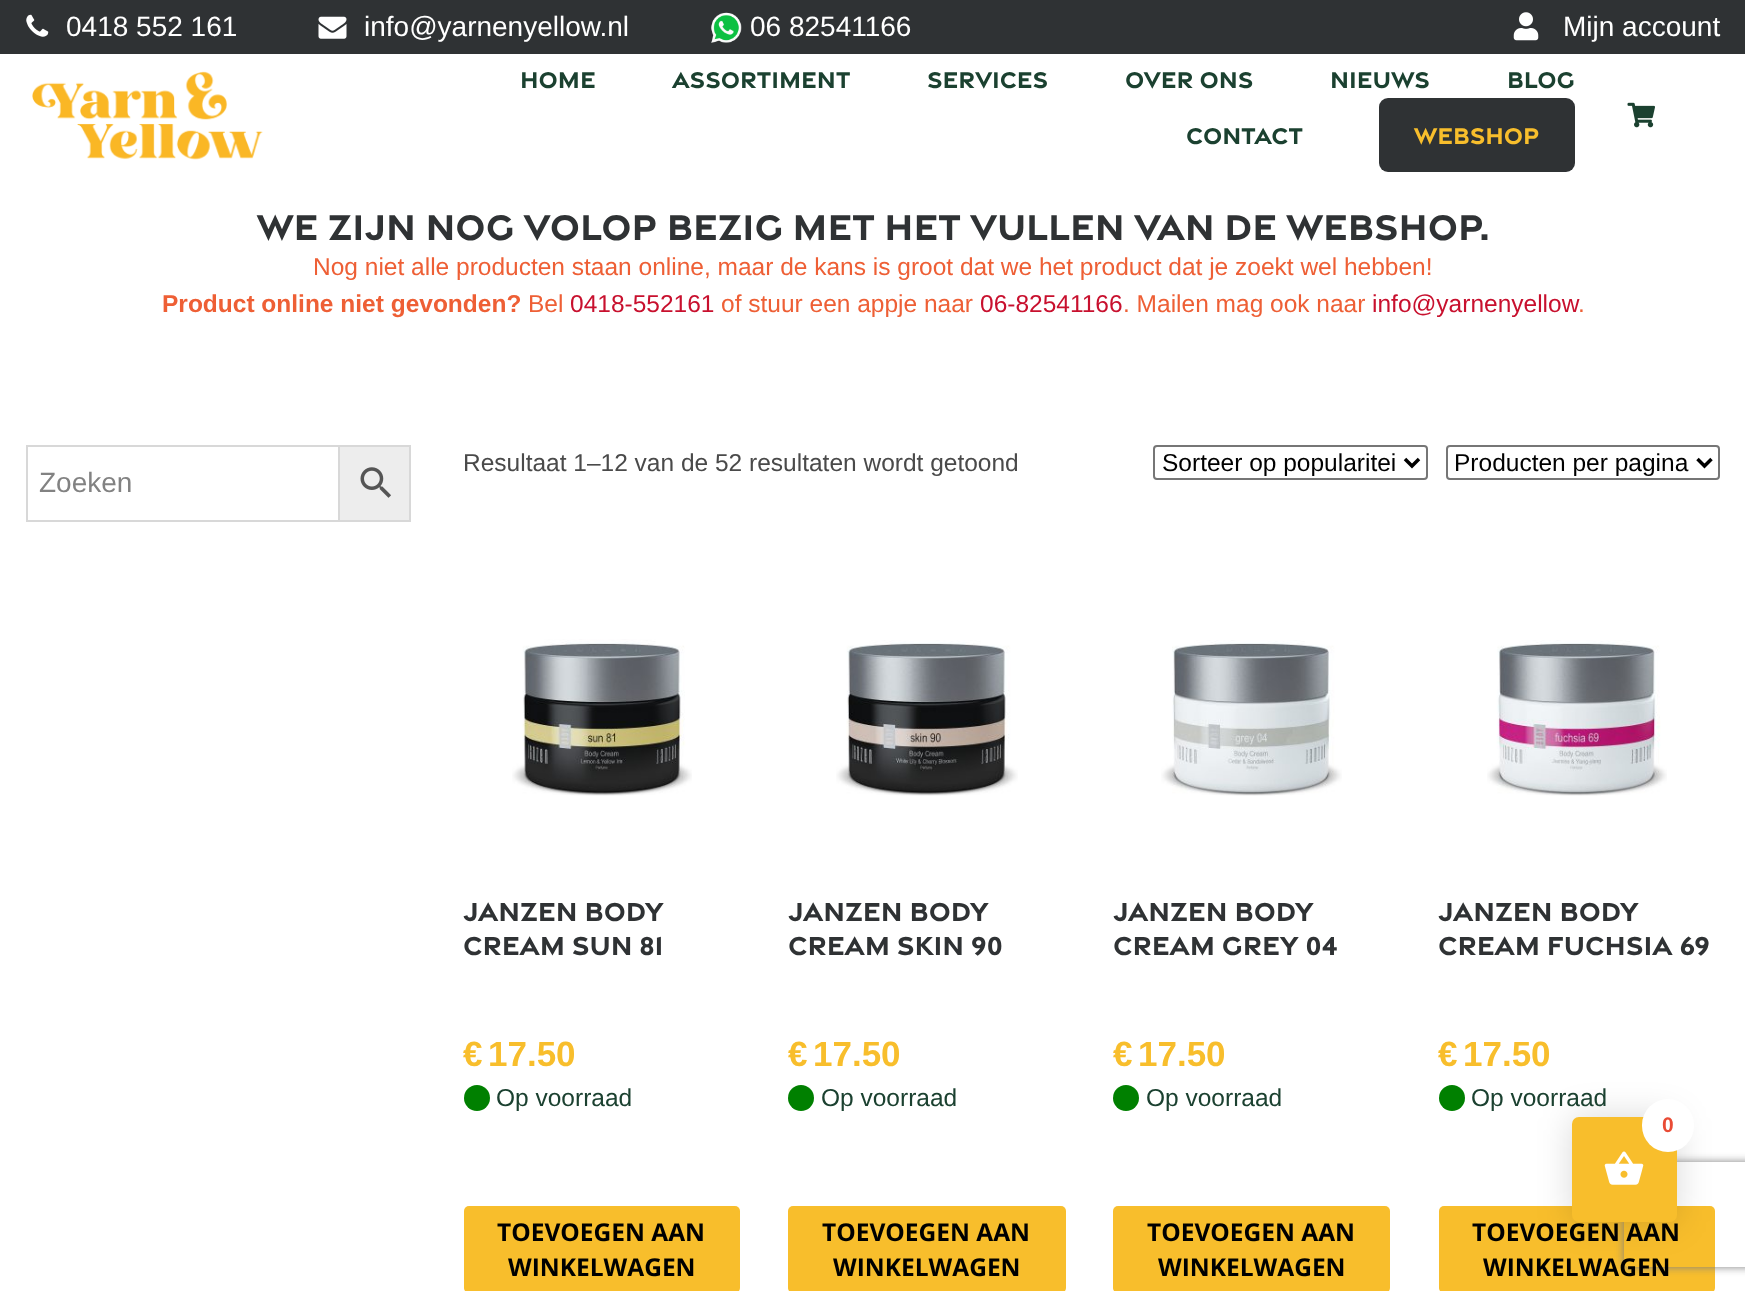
<svg xmlns="http://www.w3.org/2000/svg" width="1745" height="1291">
<style>
.a{font:28px Liberation Sans;fill:#fff}
.b{font:bold 24.5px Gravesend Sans;fill:#1b4130}
.c{font:bold 24.5px Gravesend Sans;fill:#f8be2c}
.d{font:bold 38.5px Gravesend Sans;fill:#2f3234}
.e{font:24.5px Liberation Sans;fill:#ee5f35}
.f{font:bold 24.5px Liberation Sans;fill:#ee5f35}
.g{font:24.5px Liberation Sans;fill:#c8102e}
.h{font:28px Liberation Sans;fill:#828282}
.i{font:24.5px Liberation Sans;fill:#4a4a4a}
.j{font:24.5px Liberation Sans;fill:#000}
.k{font:bold 28px Gravesend Sans;fill:#2f3234}
.l{font:bold 35px Liberation Sans;fill:#f8be2c}
.m{font:24.5px Liberation Sans;fill:#1b4130}
.n{font:bold 24.5px Open Sans;fill:#000}
.o{font:bold 21px Liberation Sans;fill:#e94b35}
</style>
<defs>
<clipPath id="clip1"><path d="M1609 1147h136v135h-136zm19 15h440c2 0 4 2 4 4v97c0 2-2 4-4 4h-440c-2 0-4-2-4-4v-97c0-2 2-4 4-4z" clip-rule="evenodd"/></clipPath>
</defs>
<rect width="100%" height="100%" fill="#fff"/>
<path fill="#2f3234" d="M0 0h1745v54H0z"/>
<image href="1.png" x="26" y="14" width="23" height="23"/>
<image href="2.png" x="318" y="16" width="29" height="23"/>
<image href="3.png" x="711" y="12" width="31" height="31"/>
<image href="4.png" x="1513" y="12" width="26" height="29"/>
<image href="5.png" x="32" y="71" width="231" height="89"/>
<rect fill="#2f3234" x="1379" y="98" width="196" height="74" rx="9"/>
<image href="6.png" x="1627" y="102" width="28" height="26"/>
<path fill="#ededed" stroke="#d8d8d8" stroke-width="2" d="M339 446h71v75H339z"/>
<path fill="none" stroke="#d8d8d8" stroke-width="2" d="M27 446h312v75H27z"/>
<image href="7.png" x="360" y="467" width="31" height="31"/>
<rect fill="none" stroke="#767676" stroke-width="2" x="1154" y="446" width="273" height="33" rx="3"/>
<path fill="none" stroke="#000" stroke-width="3.5" d="M1405 459l7 7l7-7"/>
<rect fill="none" stroke="#767676" stroke-width="2" x="1447" y="446" width="272" height="33" rx="3"/>
<path fill="none" stroke="#000" stroke-width="3.5" d="M1697.5 459l7 7l7-7"/>
<image href="8.png" x="512" y="639" width="180" height="157"/>
<circle fill="#008000" cx="477" cy="1098" r="13"/>
<rect fill="#f8be2c" x="464" y="1206" width="276" height="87" rx="5"/>
<image href="9.png" x="836" y="640" width="182" height="156"/>
<circle fill="#008000" cx="801" cy="1098" r="13"/>
<rect fill="#f8be2c" x="788" y="1206" width="278" height="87" rx="5"/>
<image href="10.png" x="1161" y="640" width="181" height="156"/>
<circle fill="#008000" cx="1126" cy="1098" r="13"/>
<rect fill="#f8be2c" x="1113" y="1206" width="277" height="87" rx="5"/>
<image href="11.png" x="1487" y="640" width="180" height="156"/>
<circle fill="#008000" cx="1452" cy="1098" r="13"/>
<rect fill="#f8be2c" x="1439" y="1206" width="276" height="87" rx="5"/>
<rect fill="#00000026" filter="blur(17.5px)" x="1572" y="1117" width="105" height="105" rx="7"/>
<g clip-path="url(#clip1)">
<rect fill="#808080" filter="blur(4.5px)" x="1624" y="1162" width="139" height="105" rx="4"/>
</g>
<rect fill="#f8be2c" x="1572" y="1117" width="105" height="105" rx="7"/>
<image href="12.png" x="1604" y="1151" width="40" height="34"/>
<rect fill="#fff" x="1642" y="1099" width="52" height="53" rx="26"/>
<text class="a" x="66" y="36">0418 552 161</text>
<text class="a" x="364" y="36">info@yarnenyellow.nl</text>
<text class="a" x="750" y="36">06 82541166</text>
<text class="a" x="1563" y="36">Mijn account</text>
<text class="b" x="520" y="88">Home</text>
<text class="b" x="672" y="88">Assortiment</text>
<text class="b" x="927" y="88">Services</text>
<text class="b" x="1125" y="88">Over ons</text>
<text class="b" x="1330" y="88">Nieuws</text>
<text class="b" x="1507" y="88">Blog</text>
<text class="b" x="1186" y="144">Contact</text>
<text class="c" x="1414" y="144">Webshop</text>
<text class="d" x="257" y="240">We zijn nog volop bezig met het vullen van de webshop.</text>
<text class="e" x="313" y="275">Nog niet alle producten staan online, maar de kans is groot dat we het product dat je zoekt wel hebben!</text>
<text class="f" x="162" y="312">Product online niet gevonden?</text>
<text class="e" x="528" y="312">Bel</text>
<text class="g" x="570" y="312">0418-552161</text>
<text class="e" x="721" y="312">of stuur een appje naar</text>
<text class="g" x="980" y="312">06-82541166</text>
<text class="e" x="1123" y="312">. Mailen mag ook naar</text>
<text class="g" x="1372" y="312">info@yarnenyellow</text>
<text class="e" x="1578" y="312">.</text>
<text class="h" x="39" y="492">Zoeken</text>
<text class="i" x="463" y="471">Resultaat 1–12 van de 52 resultaten wordt getoond</text>
<text class="j" x="1162" y="471">Sorteer op popularitei</text>
<text class="j" x="1454" y="471">Producten per pagina</text>
<text class="k" x="463" y="921">JANZEN Body</text>
<text class="k" x="463" y="955">Cream Sun 81</text>
<text class="l" x="463" y="1066">€</text>
<text class="l" x="488" y="1066">17.50</text>
<text class="m" x="496" y="1106">Op voorraad</text>
<text class="n" x="497" y="1241">TOEVOEGEN AAN</text>
<text class="n" x="508" y="1276">WINKELWAGEN</text>
<text class="k" x="788" y="921">JANZEN Body</text>
<text class="k" x="788" y="955">Cream Skin 90</text>
<text class="l" x="788" y="1066">€</text>
<text class="l" x="813" y="1066">17.50</text>
<text class="m" x="821" y="1106">Op voorraad</text>
<text class="n" x="822" y="1241">TOEVOEGEN AAN</text>
<text class="n" x="833" y="1276">WINKELWAGEN</text>
<text class="k" x="1113" y="921">JANZEN Body</text>
<text class="k" x="1113" y="955">Cream Grey 04</text>
<text class="l" x="1113" y="1066">€</text>
<text class="l" x="1138" y="1066">17.50</text>
<text class="m" x="1146" y="1106">Op voorraad</text>
<text class="n" x="1147" y="1241">TOEVOEGEN AAN</text>
<text class="n" x="1158" y="1276">WINKELWAGEN</text>
<text class="k" x="1438" y="921">JANZEN Body</text>
<text class="k" x="1438" y="955">Cream Fuchsia 69</text>
<text class="l" x="1438" y="1066">€</text>
<text class="l" x="1463" y="1066">17.50</text>
<text class="m" x="1471" y="1106">Op voorraad</text>
<text class="n" x="1472" y="1241">TOEVOEGEN AAN</text>
<text class="n" x="1483" y="1276">WINKELWAGEN</text>
<text class="o" x="1662" y="1132">0</text>
</svg>
